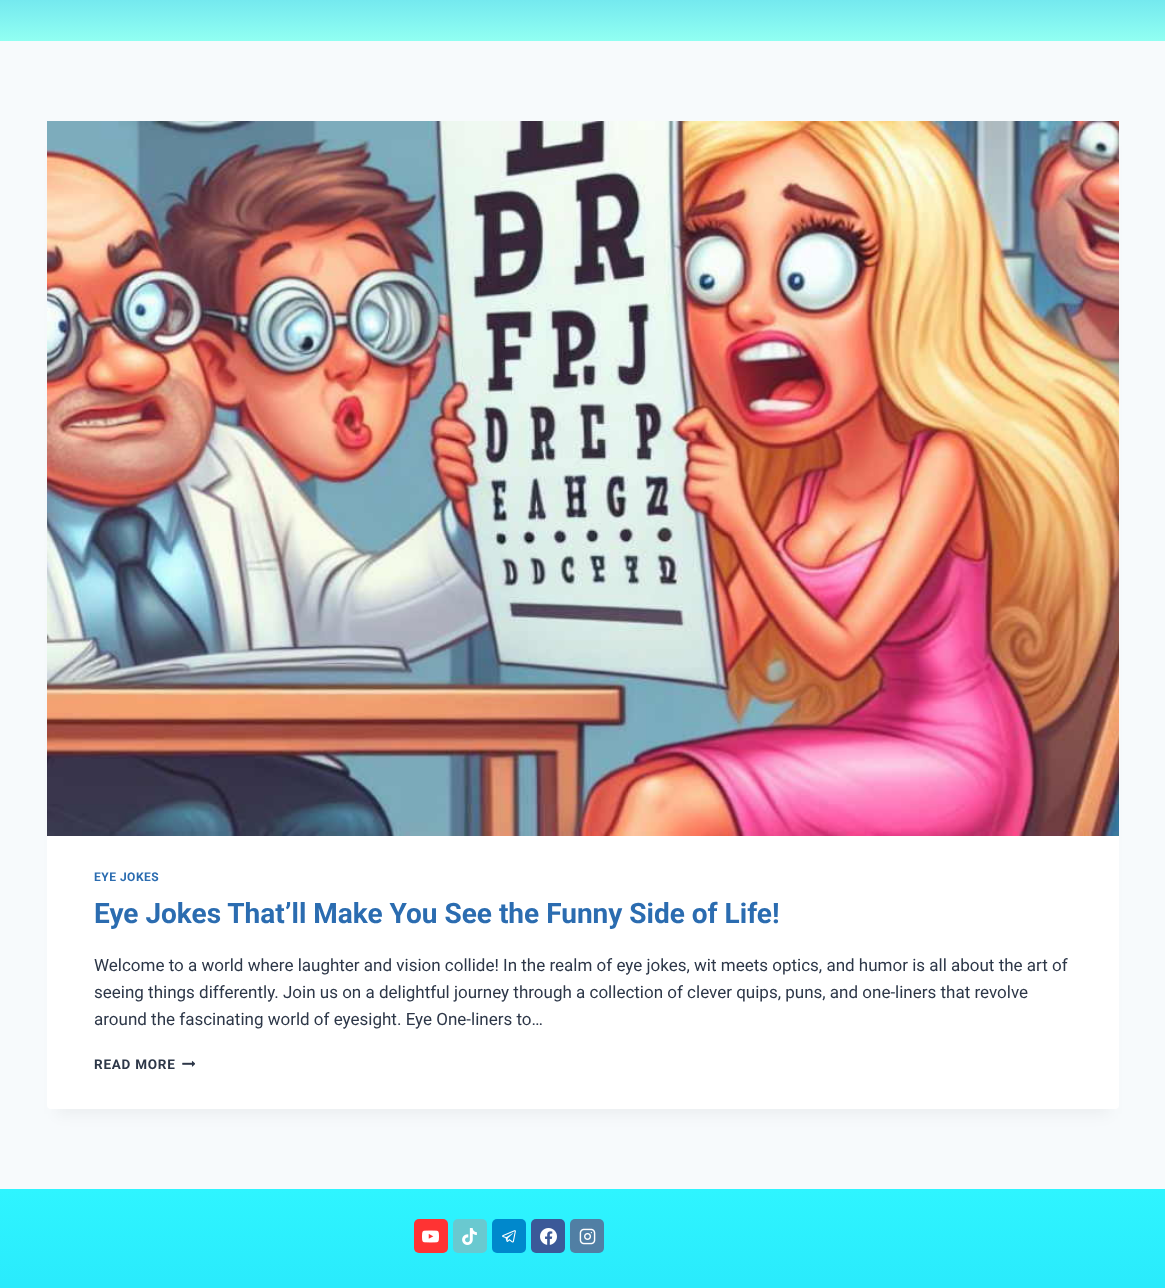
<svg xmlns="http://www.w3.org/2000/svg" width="1165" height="1288">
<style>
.a{font:bold 12px Roboto;letter-spacing:0.5px;fill:#2b6cb0}
.b{font:bold 28px Roboto;fill:#2b6cb0}
.c{font:17px Roboto;fill:#2d3748}
.d{font:bold 13.5px Roboto;letter-spacing:0.75px;fill:#2d3748}
</style>
<defs>
<linearGradient id="g1" gradientUnits="userSpaceOnUse" x1="583" y1="-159" x2="583" y2="41"><stop offset="0" stop-color="#0693e3"/><stop offset="1" stop-color="#91fff2"/></linearGradient>
<linearGradient id="g2" gradientUnits="userSpaceOnUse" x1="583" y1="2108" x2="583" y2="1189"><stop offset="0" stop-color="#0693e3"/><stop offset="1" stop-color="#2ef5ff"/></linearGradient>
</defs>
<rect width="100%" height="100%" fill="#f7fafc"/>
<path fill="url(#g1)" d="M0 0h1165v41H0z"/>
<path fill="#0000000d" filter="blur(7.5px)" d="M57 146h1052v968H57z"/>
<rect fill="#fff" x="47" y="121" width="1072" height="988" rx="4"/>
<image href="1.png" x="47" y="121" width="1072" height="715"/>
<image href="2.png" x="182" y="1060" width="13" height="7"/>
<path fill="url(#g2)" d="M0 1189h1165v99H0z"/>
<rect fill="#f33" x="414" y="1219" width="34" height="34" rx="5"/>
<image href="3.png" x="422" y="1230" width="17" height="13"/>
<rect fill="#69c9d0" x="453" y="1219" width="34" height="34" rx="5"/>
<image href="4.png" x="462" y="1228" width="15" height="17"/>
<rect fill="#08c" x="492" y="1219" width="34" height="34" rx="5"/>
<image href="5.png" x="502" y="1230" width="14" height="13"/>
<rect fill="#3b5998" x="531" y="1219" width="34" height="34" rx="5"/>
<image href="6.png" x="540" y="1228" width="17" height="17"/>
<rect fill="#517fa4" x="570" y="1219" width="34" height="34" rx="5"/>
<image href="7.png" x="579" y="1228" width="17" height="17"/>
<text class="a" x="94" y="881">EYE JOKES</text>
<text class="b" x="94" y="923">Eye Jokes That’ll Make You See the Funny Side of Life!</text>
<text class="c" x="94" y="971">Welcome to a world where laughter and vision collide! In the realm of eye jokes, wit meets optics, and humor is all about the art of</text>
<text class="c" x="94" y="998">seeing things differently. Join us on a delightful journey through a collection of clever quips, puns, and one-liners that revolve</text>
<text class="c" x="94" y="1025">around the fascinating world of eyesight. Eye One-liners to…</text>
<text class="d" x="94" y="1069">READ MORE</text>
</svg>
